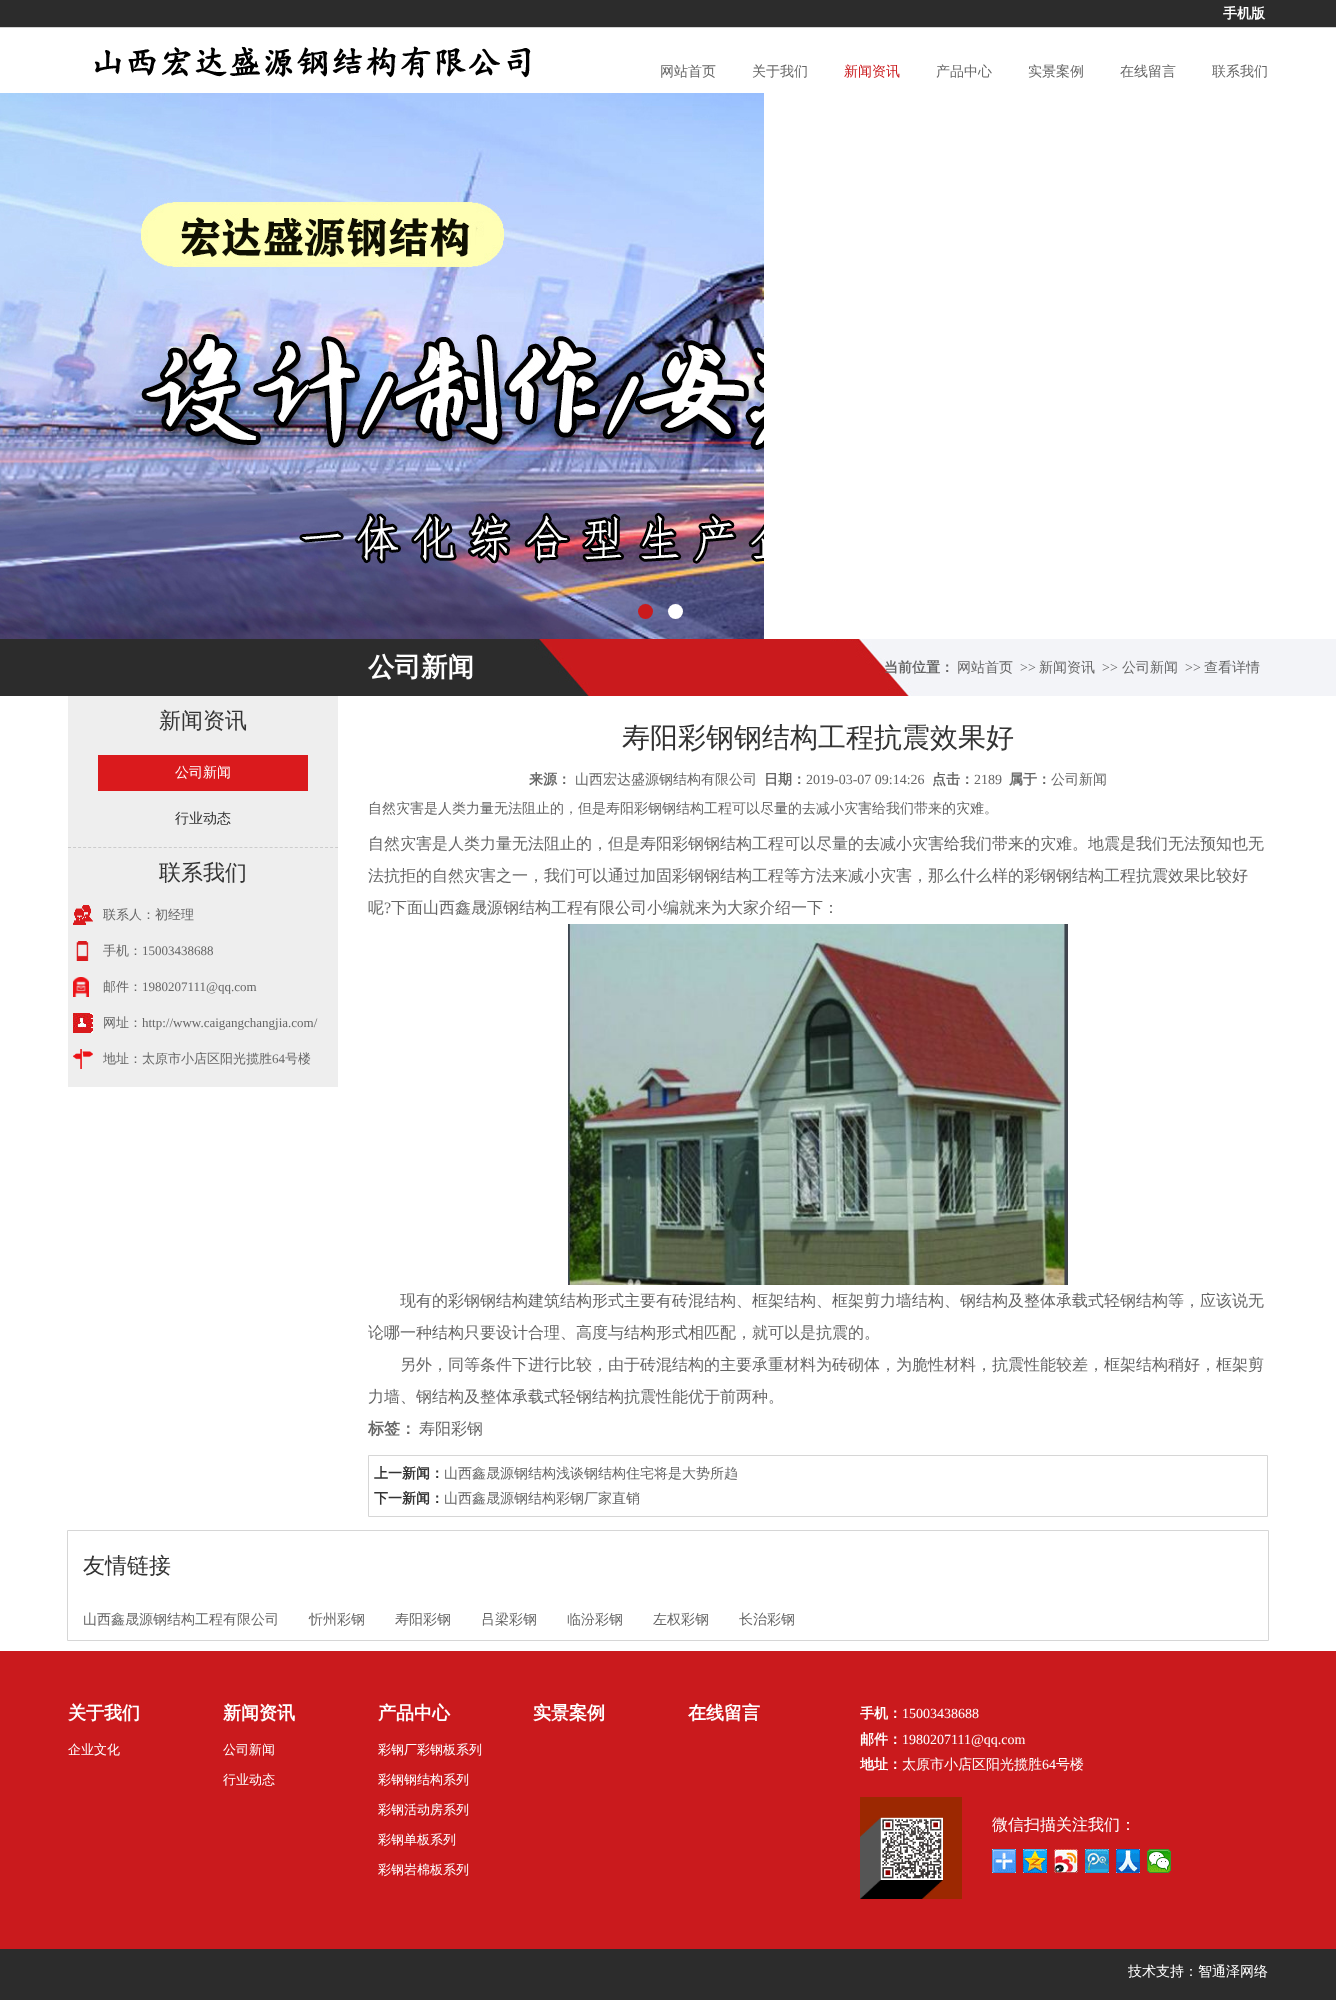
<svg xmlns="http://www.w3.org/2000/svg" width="1336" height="2000">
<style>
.a{font:bold 14px WenQuanYi Zen Hei;fill:#fff}
.b{font:500 14px WenQuanYi Zen Hei;fill:#666}
.c{font:500 14px WenQuanYi Zen Hei;fill:#ca1a1d}
.d{font:bold 26.5px WenQuanYi Zen Hei;fill:#fff}
.e{font:bold 14px WenQuanYi Zen Hei;fill:#666}
.f{font:14px Liberation Serif;fill:#666}
.g{font:500 22px WenQuanYi Zen Hei;fill:#333}
.h{font:500 14px WenQuanYi Zen Hei;fill:#fff}
.i{font:500 14px WenQuanYi Zen Hei;fill:#2c2c2c}
.j{font:500 13px WenQuanYi Zen Hei;fill:#666}
.k{font:13px Liberation Serif;fill:#666}
.l{font:500 28px WenQuanYi Zen Hei;fill:#333}
.m{font:500 16px WenQuanYi Zen Hei;fill:#666}
.n{font:16px Liberation Serif;fill:#666}
.o{font:bold 16px WenQuanYi Zen Hei;fill:#666}
.p{font:bold 14px WenQuanYi Zen Hei;fill:#333}
.q{font:bold 18px WenQuanYi Zen Hei;fill:#fff}
.r{font:500 13px WenQuanYi Zen Hei;fill:#fff}
.s{font:14px Liberation Serif;fill:#fff}
.t{font:500 16px WenQuanYi Zen Hei;fill:#fff}
</style>
<rect width="100%" height="100%" fill="#fff"/>
<path fill="#2c2c2c" d="M0 0h1336v27H0z"/>
<path fill="#d1d1d1" d="M0 27h1336v1H0z"/>
<image href="1.png" x="94" y="46" width="437" height="32"/>
<image href="2.png" x="0" y="93" width="764" height="546"/>
<circle fill="#ca1a1d" cx="645.5" cy="611.5" r="7.5"/>
<circle fill="#fff" cx="675.5" cy="611.5" r="7.5"/>
<image href="3.png" x="0" y="639" width="1336" height="57"/>
<path fill="#eee" d="M68 696h270v49H68z"/>
<path fill="#eee" d="M68 745h270v152H68z"/>
<path fill="#da1a1d" d="M98 755h210v36H98z"/>
<path fill="none" stroke="#ccc" stroke-dasharray="3 2.04" d="M68 847.5h270"/>
<path fill="#eee" d="M68 897h270v190H68z"/>
<image href="4.png" x="73" y="905" width="20" height="20"/>
<image href="5.png" x="76" y="941" width="13" height="20"/>
<image href="6.png" x="73" y="977" width="16" height="20"/>
<image href="7.png" x="73" y="1013" width="20" height="20"/>
<image href="8.png" x="73" y="1049" width="20" height="20"/>
<image href="9.png" x="568" y="924" width="500" height="361"/>
<path fill="none" stroke="#d6d6d6" d="M368.5 1455.5h899v61H368.5z"/>
<path fill="none" stroke="#d6d6d6" d="M67.5 1530.5h1201v110H67.5z"/>
<path fill="#ca1a1d" d="M0 1651h1336v298H0z"/>
<image href="10.png" x="860" y="1797" width="102" height="102"/>
<image href="11.png" x="992" y="1849" width="24" height="24"/>
<image href="12.png" x="1023" y="1849" width="24" height="24"/>
<image href="13.png" x="1054" y="1849" width="24" height="24"/>
<image href="14.png" x="1085" y="1849" width="24" height="24"/>
<image href="15.png" x="1116" y="1849" width="24" height="24"/>
<image href="16.png" x="1147" y="1849" width="24" height="24"/>
<path fill="#2c2c2c" d="M0 1949h1336v51H0z"/>
<text class="a" x="1223" y="18">手机版</text>
<text class="b" x="660" y="76">网站首页</text>
<text class="b" x="752" y="76">关于我们</text>
<text class="c" x="844" y="76">新闻资讯</text>
<text class="b" x="936" y="76">产品中心</text>
<text class="b" x="1028" y="76">实景案例</text>
<text class="b" x="1120" y="76">在线留言</text>
<text class="b" x="1212" y="76">联系我们</text>
<text class="d" x="368" y="676">公司新闻</text>
<text class="e" x="884" y="672">当前位置：</text>
<text class="b" x="957" y="672">网站首页</text>
<text class="f" x="1020" y="672">&gt;&gt;</text>
<text class="b" x="1039" y="672">新闻资讯</text>
<text class="f" x="1102" y="672">&gt;&gt;</text>
<text class="b" x="1122" y="672">公司新闻</text>
<text class="f" x="1185" y="672">&gt;&gt;</text>
<text class="b" x="1204" y="672">查看详情</text>
<text class="g" x="159" y="728">新闻资讯</text>
<text class="h" x="175" y="777">公司新闻</text>
<text class="i" x="175" y="823">行业动态</text>
<text class="g" x="159" y="880">联系我们</text>
<text class="j" x="103" y="919">联系人：初经理</text>
<text class="j" x="103" y="955">手机：</text>
<text class="k" x="142" y="955">15003438688</text>
<text class="j" x="103" y="991">邮件：</text>
<text class="k" x="142" y="991">1980207111@qq.com</text>
<text class="j" x="103" y="1027">网址：</text>
<text class="k" x="142" y="1027">http://www.caigangchangjia.com/</text>
<text class="j" x="103" y="1063">地址：太原市小店区阳光揽胜</text>
<text class="k" x="272" y="1063">64</text>
<text class="j" x="285" y="1063">号楼</text>
<text class="l" x="622" y="747">寿阳彩钢钢结构工程抗震效果好</text>
<text class="e" x="529" y="784">来源：</text>
<text class="b" x="575" y="784">山西宏达盛源钢结构有限公司</text>
<text class="e" x="764" y="784">日期：</text>
<text class="f" x="806" y="784">2019-03-07 09:14:26</text>
<text class="e" x="932" y="784">点击：</text>
<text class="f" x="974" y="784">2189</text>
<text class="e" x="1009" y="784">属于：</text>
<text class="b" x="1051" y="784">公司新闻</text>
<text class="b" x="368" y="813">自然灾害是人类力量无法阻止的，但是寿阳彩钢钢结构工程可以尽量的去减小灾害给我们带来的灾难。</text>
<text class="m" x="368" y="849">自然灾害是人类力量无法阻止的，但是</text>
<text class="m" x="640" y="849">寿阳彩钢</text>
<text class="m" x="704" y="849">钢结构工程可以尽量的去减小灾害给我们带来的灾难。地震是我们无法预知也无</text>
<text class="m" x="368" y="881">法抗拒的自然灾害之一，我们可以通过加固彩钢钢结构工程等方法来减小灾害，那么什么样的彩钢钢结构工程抗震效果比较好</text>
<text class="m" x="368" y="913">呢</text>
<text class="n" x="384" y="913">?</text>
<text class="m" x="391" y="913">下面山西鑫晟源钢结构工程有限公司小编就来为大家介绍一下：</text>
<text class="m" x="400" y="1306">现有的彩钢钢结构建筑结构形式主要有砖混结构、框架结构、框架剪力墙结构、钢结构及整体承载式轻钢结构等，应该说无</text>
<text class="m" x="368" y="1338">论哪一种结构只要设计合理、高度与结构形式相匹配，就可以是抗震的。</text>
<text class="m" x="400" y="1370">另外，同等条件下进行比较，由于砖混结构的主要承重材料为砖砌体，为脆性材料，抗震性能较差，框架结构稍好，框架剪</text>
<text class="m" x="368" y="1402">力墙、钢结构及整体承载式轻钢结构抗震性能优于前两种。</text>
<text class="o" x="368" y="1434">标签：</text>
<text class="m" x="419" y="1434">寿阳彩钢</text>
<text class="p" x="374" y="1478">上一新闻：</text>
<text class="b" x="444" y="1478">山西鑫晟源钢结构浅谈钢结构住宅将是大势所趋</text>
<text class="p" x="374" y="1503">下一新闻：</text>
<text class="b" x="444" y="1503">山西鑫晟源钢结构彩钢厂家直销</text>
<text class="g" x="83" y="1573">友情链接</text>
<text class="b" x="83" y="1624">山西鑫晟源钢结构工程有限公司</text>
<text class="b" x="309" y="1624">忻州彩钢</text>
<text class="b" x="395" y="1624">寿阳彩钢</text>
<text class="b" x="481" y="1624">吕梁彩钢</text>
<text class="b" x="567" y="1624">临汾彩钢</text>
<text class="b" x="653" y="1624">左权彩钢</text>
<text class="b" x="739" y="1624">长治彩钢</text>
<text class="q" x="68" y="1719">关于我们</text>
<text class="r" x="68" y="1754">企业文化</text>
<text class="q" x="223" y="1719">新闻资讯</text>
<text class="r" x="223" y="1754">公司新闻</text>
<text class="r" x="223" y="1784">行业动态</text>
<text class="q" x="378" y="1719">产品中心</text>
<text class="r" x="378" y="1754">彩钢厂彩钢板系列</text>
<text class="r" x="378" y="1784">彩钢钢结构系列</text>
<text class="r" x="378" y="1814">彩钢活动房系列</text>
<text class="r" x="378" y="1844">彩钢单板系列</text>
<text class="r" x="378" y="1874">彩钢岩棉板系列</text>
<text class="q" x="533" y="1719">实景案例</text>
<text class="q" x="688" y="1719">在线留言</text>
<text class="a" x="860" y="1718">手机：</text>
<text class="s" x="902" y="1718">15003438688</text>
<text class="a" x="860" y="1744">邮件：</text>
<text class="s" x="902" y="1744">1980207111@qq.com</text>
<text class="a" x="860" y="1769">地址：</text>
<text class="h" x="902" y="1769">太原市小店区阳光揽胜</text>
<text class="s" x="1042" y="1769">64</text>
<text class="h" x="1056" y="1769">号楼</text>
<text class="t" x="992" y="1830">微信扫描关注我们：</text>
<text class="h" x="1128" y="1976">技术支持：智通泽网络</text>
</svg>
